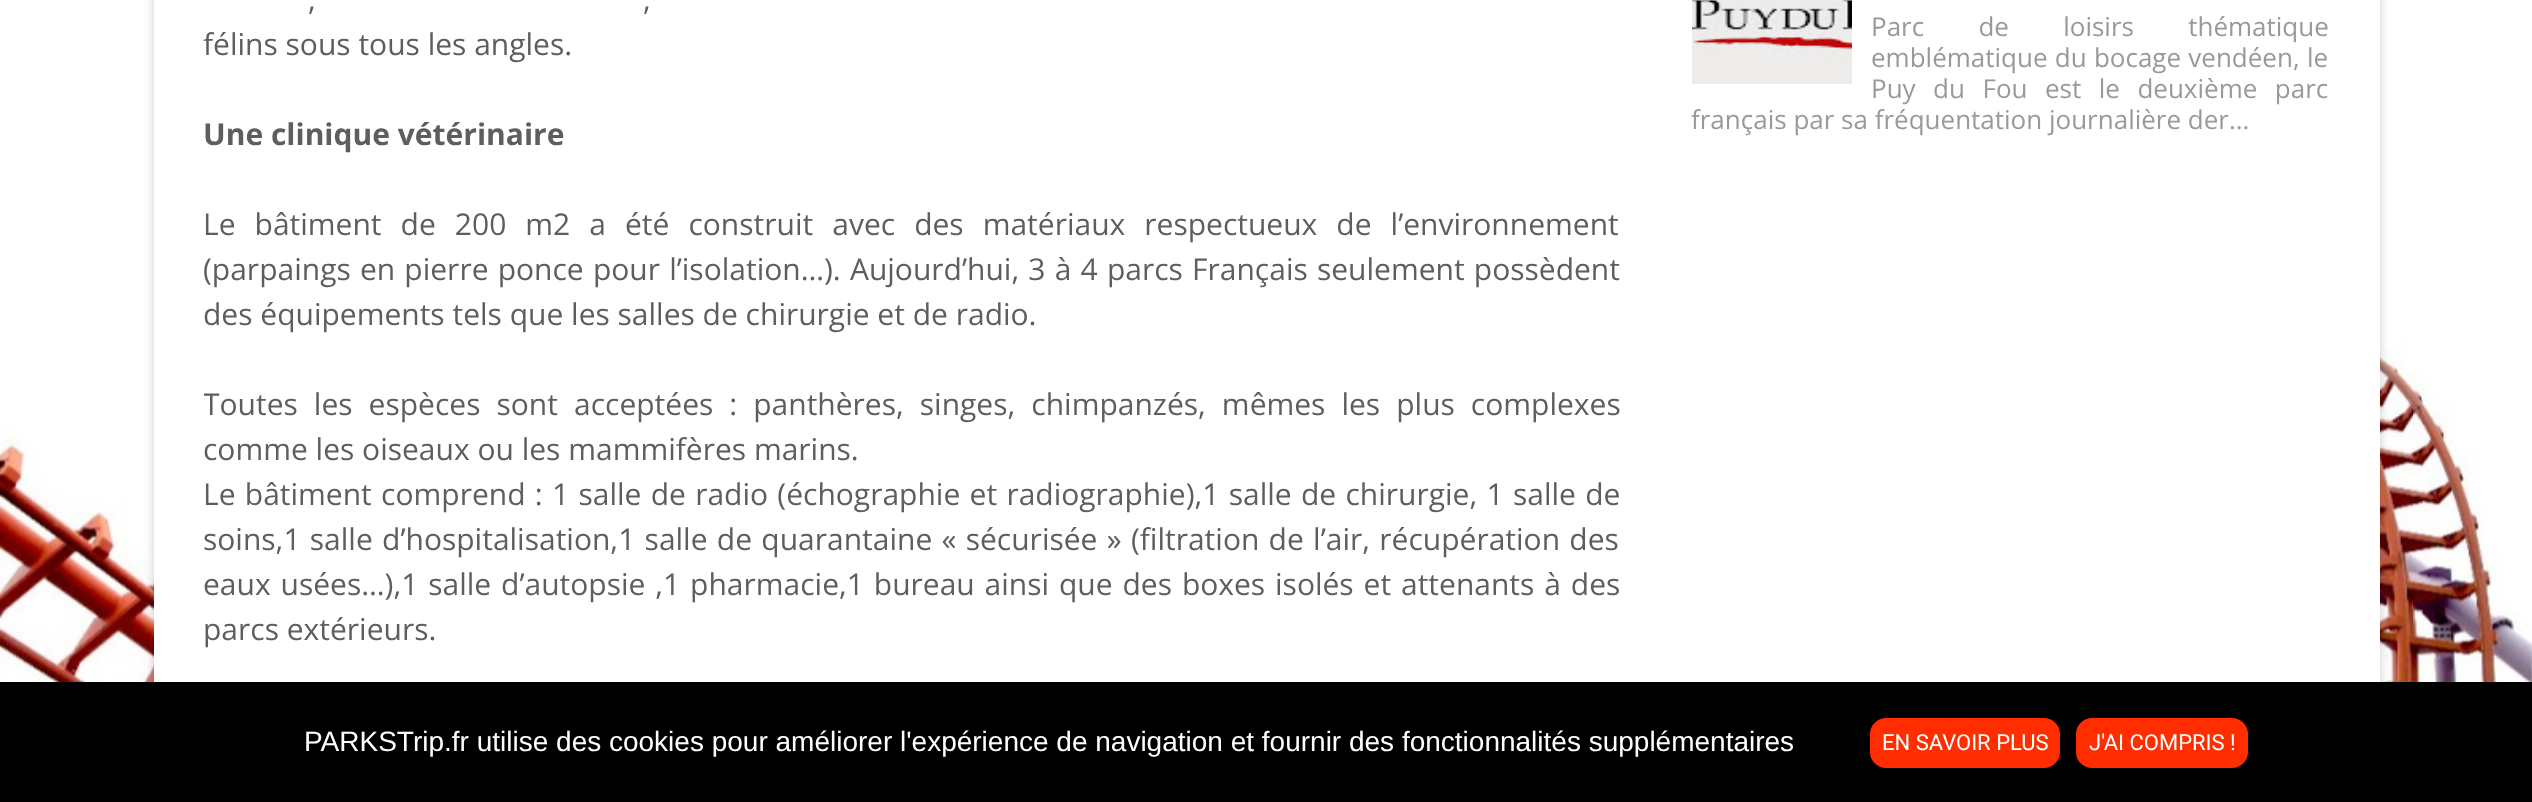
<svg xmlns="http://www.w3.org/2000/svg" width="2532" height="802">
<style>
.a{font:30px Open Sans;fill:#5e5e5e}
.b{font:bold 30px Open Sans;fill:#5e5e5e}
.c{font:26px Open Sans;fill:#999}
.d{font:28px Liberation Sans;fill:#fff}
.e{font:22px Roboto;fill:#fff}
</style>
<defs>
<clipPath id="clip1"><path d="M204 0h1416v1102H204z"/></clipPath>
</defs>
<rect width="100%" height="100%" fill="#fff"/>
<image href="1.png" x="0" y="321" width="2532" height="361"/>
<path fill="#00000033" filter="blur(5px)" d="M154 -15h2226v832H154z"/>
<path fill="#fff" d="M154 0h2226v682H154z"/>
<image href="2.png" x="1692" y="0" width="160" height="84"/>
<path fill="#000" d="M0 682h2532v120H0z"/>
<rect fill="#ff2d00" x="1870" y="718" width="190" height="50" rx="16"/>
<rect fill="#ff2d00" x="2076" y="718" width="172" height="50" rx="16"/>
<text class="a" x="308" y="10" word-spacing="4">,</text>
<text class="a" x="643" y="10" word-spacing="4">,</text>
<text class="a" x="203" y="55">félins sous tous les angles.</text>
<text class="b" x="203" y="145">Une clinique vétérinaire</text>
<text class="a" x="203" y="235" word-spacing="11.25">Le bâtiment de 200 m2 a été construit avec des matériaux respectueux de l’environnement</text>
<text class="a" x="203" y="280" word-spacing="1.4">(parpaings en pierre ponce pour l’isolation…). Aujourd’hui, 3 à 4 parcs Français seulement possèdent</text>
<text class="a" x="203" y="325">des équipements tels que les salles de chirurgie et de radio.</text>
<g clip-path="url(#clip1)">
<text class="a" x="203" y="415" word-spacing="8.25">Toutes les espèces sont acceptées : panthères, singes, chimpanzés, mêmes les plus complexes</text>
</g>
<text class="a" x="203" y="460">comme les oiseaux ou les mammifères marins.</text>
<text class="a" x="203" y="505" word-spacing="1.5">Le bâtiment comprend : 1 salle de radio (échographie et radiographie),1 salle de chirurgie, 1 salle de</text>
<text class="a" x="203" y="550" word-spacing="1.5">soins,1 salle d’hospitalisation,1 salle de quarantaine « sécurisée » (filtration de l’air, récupération des</text>
<text class="a" x="203" y="595" word-spacing="2.1">eaux usées…),1 salle d’autopsie ,1 pharmacie,1 bureau ainsi que des boxes isolés et attenants à des</text>
<text class="a" x="203" y="640">parcs extérieurs.</text>
<text class="c" x="1871" y="36" word-spacing="47.5">Parc de loisirs thématique</text>
<text class="c" x="1871" y="67" word-spacing="0.5">emblématique du bocage vendéen, le</text>
<text class="c" x="1871" y="98" word-spacing="10.75">Puy du Fou est le deuxième parc</text>
<text class="c" x="1691" y="129">français par sa fréquentation journalière der...</text>
<text class="d" x="304" y="751">PARKSTrip.fr utilise des cookies pour améliorer l'expérience de navigation et fournir des fonctionnalités supplémentaires</text>
<text class="e" x="1882" y="750">EN SAVOIR PLUS</text>
<text class="e" x="2089" y="750">J'AI COMPRIS !</text>
</svg>
